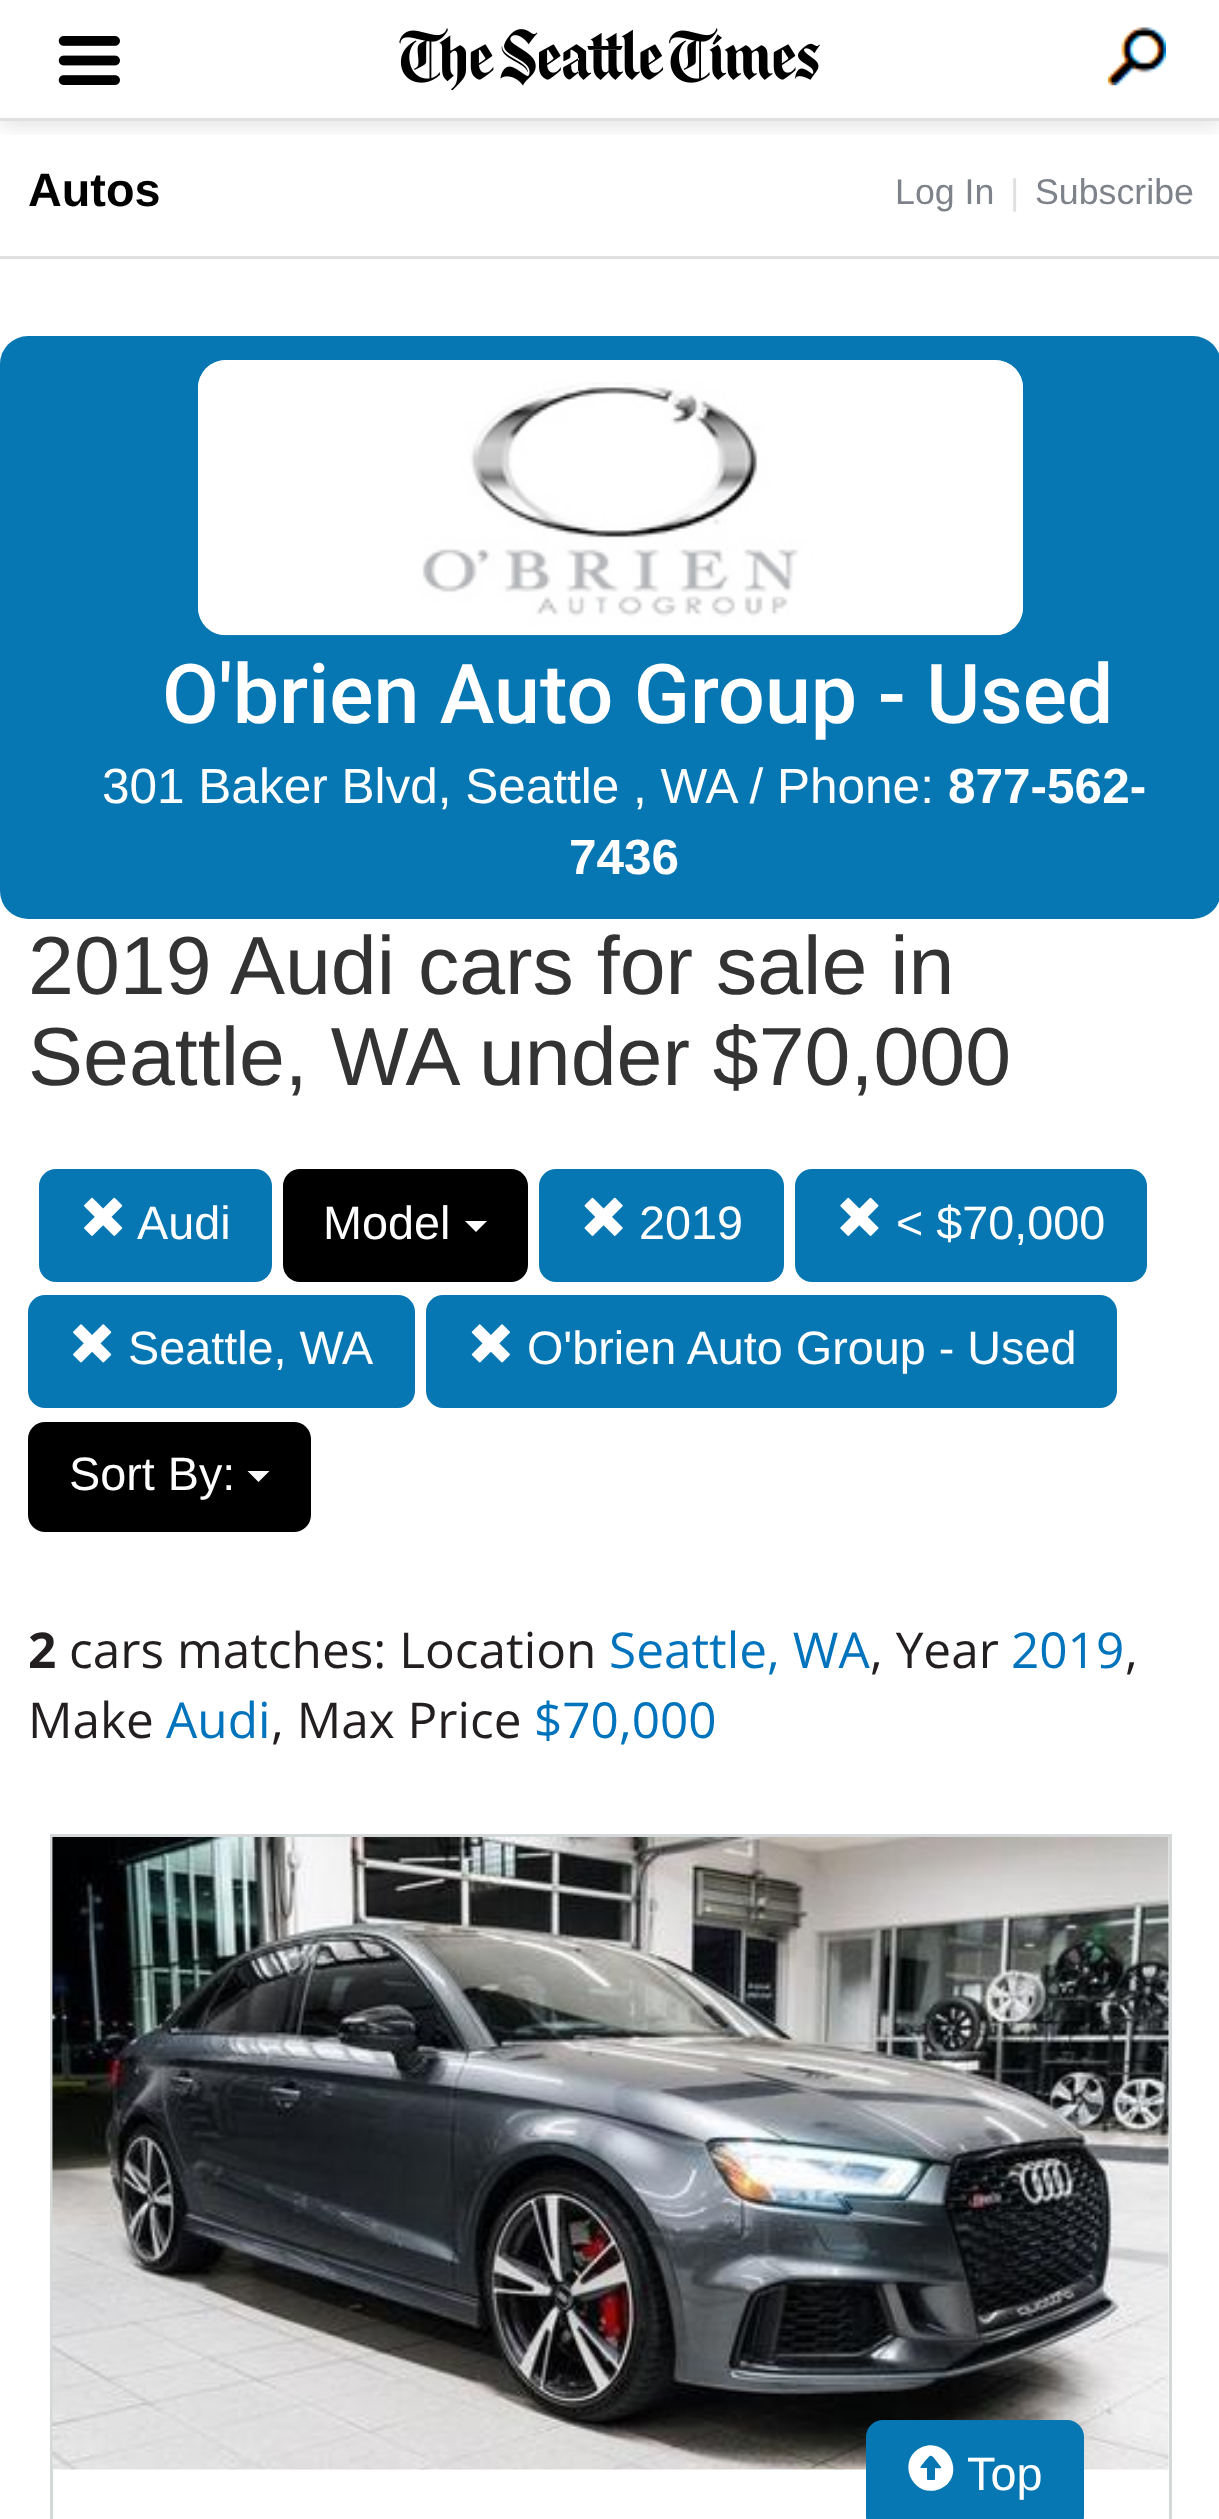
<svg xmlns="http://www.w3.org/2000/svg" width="1219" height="2519">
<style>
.a{font:bold 46.75px Liberation Sans;fill:#000}
.b{font:35.75px Liberation Sans;fill:#7e838b}
.c{font:35.75px Liberation Sans;fill:#e0e0e0}
.d{font:500 82.5px Roboto;fill:#fff}
.e{font:49.5px Liberation Sans;fill:#fff}
.f{font:bold 49.5px Liberation Sans;fill:#fff}
.g{font:82.5px Liberation Sans;fill:#333}
.h{font:46.75px Liberation Sans;fill:#fff}
.i{font:bold 49.5px Open Sans;fill:#231f20}
.j{font:49.5px Open Sans;fill:#231f20}
.k{font:49.5px Open Sans;fill:#0073bd}
</style>
<defs>
<clipPath id="clip1"><path d="M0 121h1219v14H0z"/></clipPath>
</defs>
<rect width="100%" height="100%" fill="#fff"/>
<g clip-path="url(#clip1)">
<path fill="#0000001a" filter="blur(9.5px)" d="M0 6h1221v121H0z"/>
</g>
<path fill="#e0e0e0" d="M0 118h1219v3H0z"/>
<image href="1.png" x="58" y="36" width="62" height="49"/>
<image href="2.png" x="399" y="28" width="421" height="63"/>
<image href="3.png" x="1108" y="27" width="58" height="59"/>
<path fill="#e0e0e0" d="M0 256h1219v3H0z"/>
<rect fill="#0777b3" y="336" width="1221" height="583" rx="28"/>
<rect fill="#fff" x="198" y="360" width="825" height="275" rx="28"/>
<image href="4.png" x="198" y="360" width="825" height="276"/>
<rect fill="#0777b3" x="39" y="1169" width="233" height="113" rx="17"/>
<image href="5.png" x="84" y="1197" width="39" height="39"/>
<rect fill="#000" x="283" y="1169" width="245" height="113" rx="17"/>
<path fill="#fff" d="M465 1221h22l-11 11z"/>
<rect fill="#0777b3" x="539" y="1169" width="245" height="113" rx="17"/>
<image href="6.png" x="584" y="1197" width="39" height="39"/>
<rect fill="#0777b3" x="795" y="1169" width="352" height="113" rx="17"/>
<image href="7.png" x="840" y="1197" width="39" height="39"/>
<rect fill="#0777b3" x="28" y="1295" width="387" height="113" rx="17"/>
<image href="8.png" x="73" y="1324" width="39" height="39"/>
<rect fill="#0777b3" x="426" y="1295" width="691" height="113" rx="17"/>
<image href="9.png" x="471" y="1324" width="39" height="39"/>
<rect fill="#000" x="28" y="1422" width="283" height="110" rx="17"/>
<path fill="#fff" d="M247.5 1471h22l-11 11z"/>
<path fill="none" stroke="#d4d8d9" stroke-width="3" d="M51.5 1835.5h1119v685H51.5z"/>
<image href="10.png" x="52" y="1837" width="1117" height="633"/>
<rect fill="#0777b3" stroke="#0777b3" stroke-width="3" x="867.5" y="2421.5" width="215" height="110" rx="15.5"/>
<path fill="#fff" d="M922 2447c27-11 45 30 18 42c-28 11-45-30-18-42zm19 20l-7-9c-4-5-5-1-9 3c-6 8-7 7 2 7v9c0 4 0 3 4 3c4 0 4 1 4-3v-9c0 0 8 1 6-1z"/>
<text class="a" x="28" y="206">Autos</text>
<text class="b" x="895" y="204">Log In</text>
<text class="c" x="1010" y="204">|</text>
<text class="b" x="1035" y="204">Subscribe</text>
<text class="d" x="162" y="723">O'brien Auto Group - Used</text>
<text class="e" x="102" y="803">301 Baker Blvd, Seattle , WA / Phone:</text>
<text class="f" x="948" y="803">877-562-</text>
<text class="f" x="569" y="874">7436</text>
<text class="g" x="28" y="994">2019 Audi cars for sale in</text>
<text class="g" x="28" y="1085">Seattle, WA under $70,000</text>
<text class="h" x="137" y="1239">Audi</text>
<text class="h" x="323" y="1239">Model</text>
<text class="h" x="639" y="1239">2019</text>
<text class="h" x="896" y="1239">&lt; $70,000</text>
<text class="h" x="128" y="1364">Seattle, WA</text>
<text class="h" x="527" y="1364">O'brien Auto Group - Used</text>
<text class="h" x="69" y="1490">Sort By:</text>
<text class="i" x="28" y="1668">2</text>
<text class="j" x="69" y="1668">cars matches: Location</text>
<text class="k" x="609" y="1668">Seattle, WA</text>
<text class="j" x="870" y="1668">, Year</text>
<text class="k" x="1011" y="1668">2019</text>
<text class="j" x="1125" y="1668">,</text>
<text class="j" x="28" y="1738">Make</text>
<text class="k" x="166" y="1738">Audi</text>
<text class="j" x="271" y="1738">, Max Price</text>
<text class="k" x="534" y="1738">$70,000</text>
<text class="h" x="967" y="2490">Top</text>
</svg>
